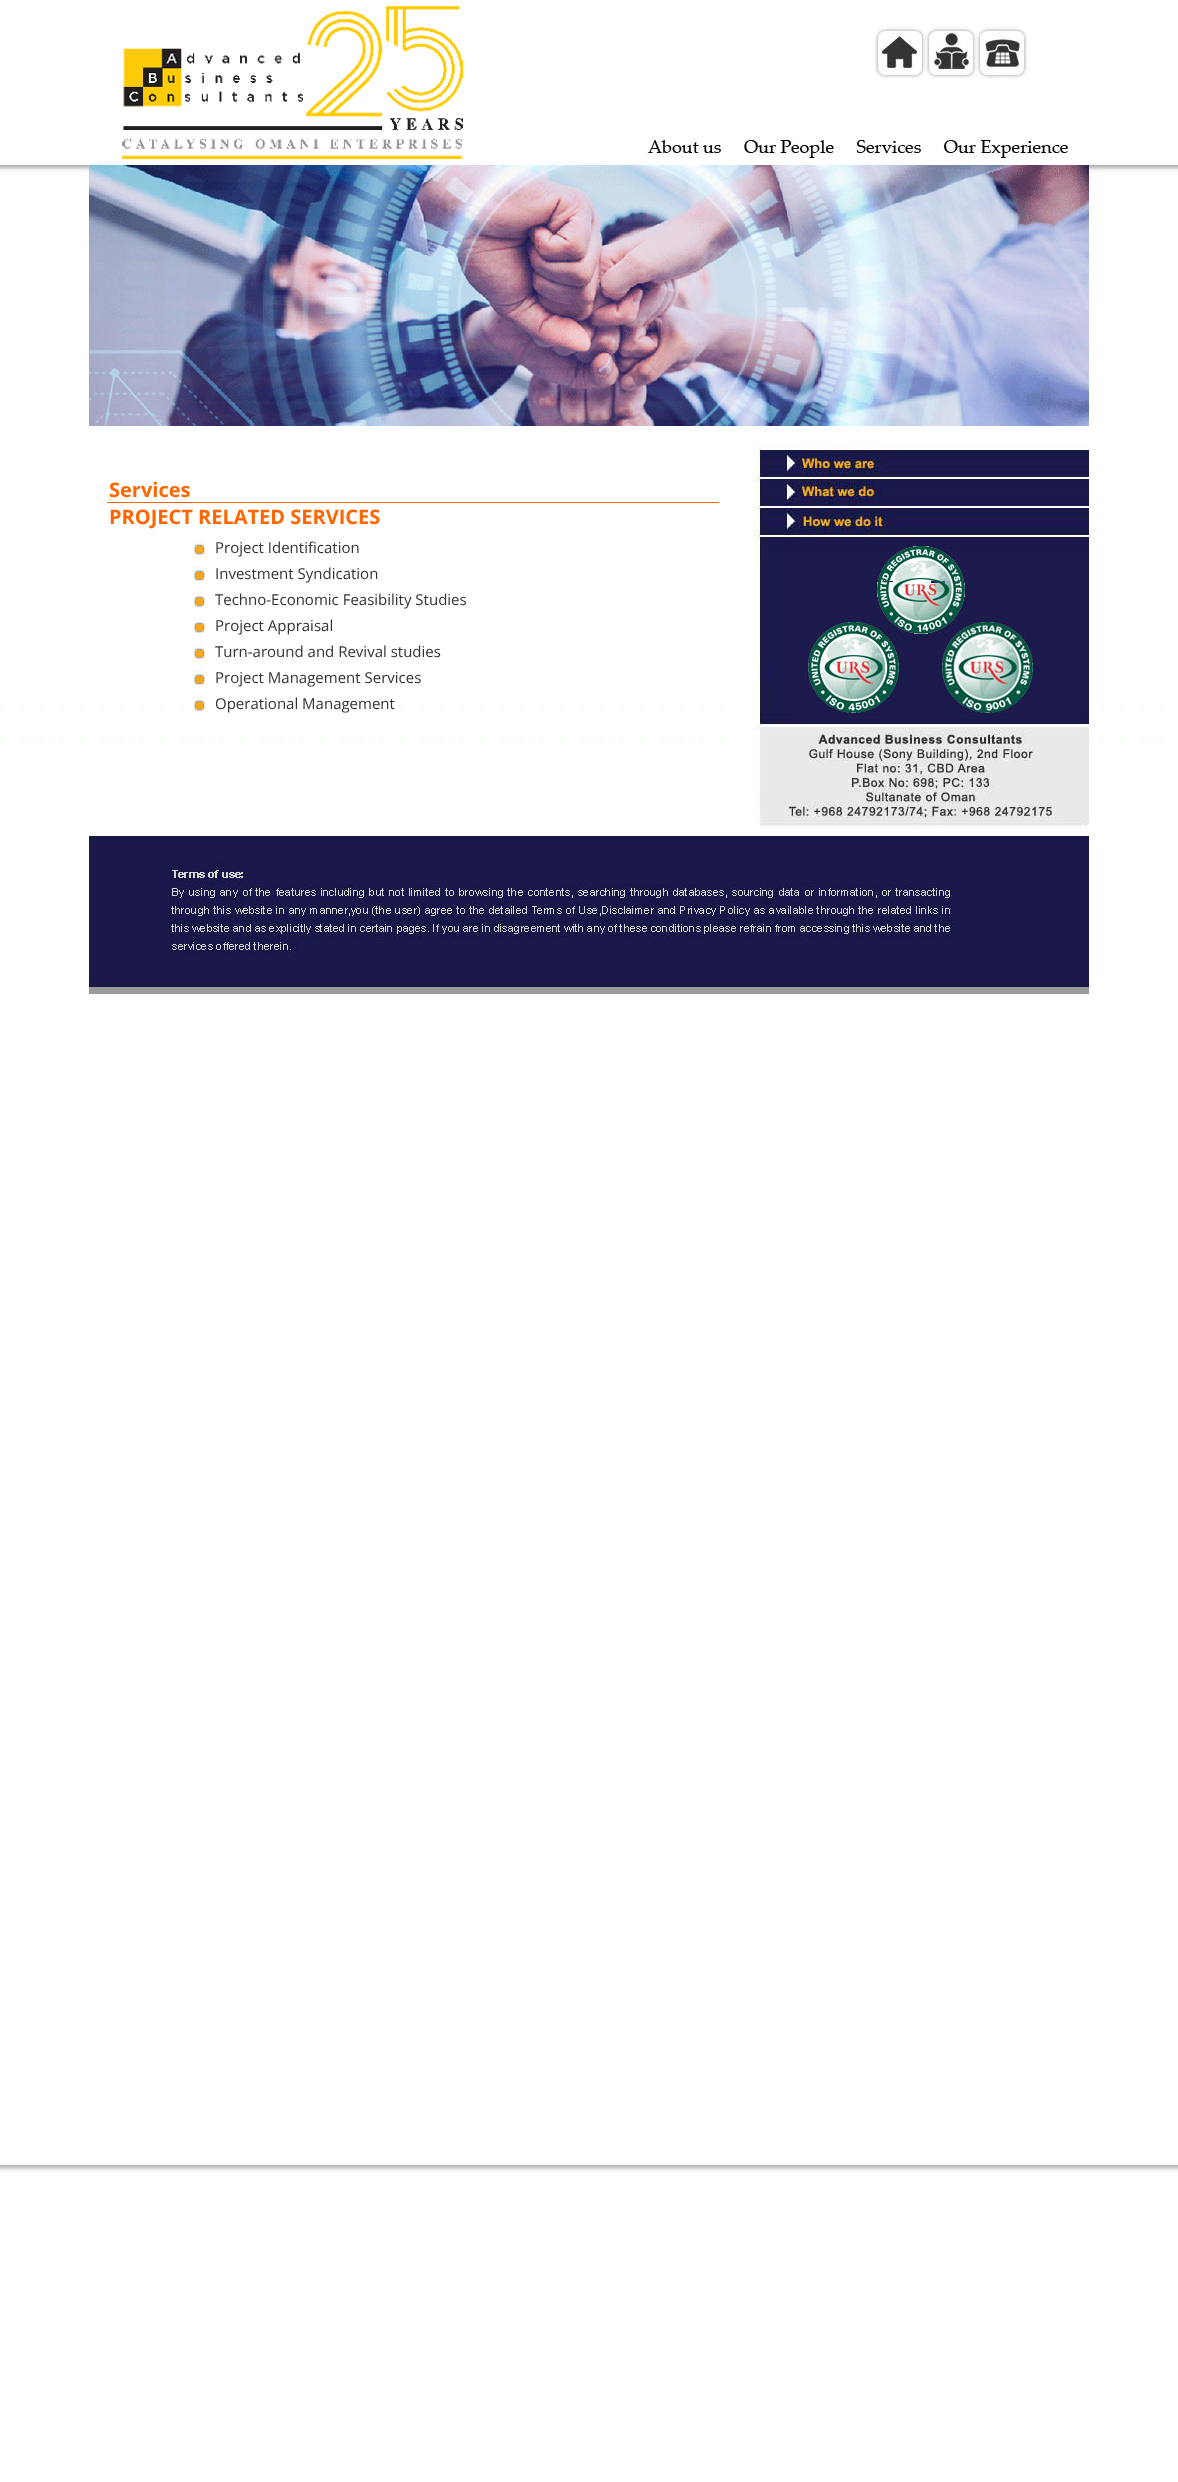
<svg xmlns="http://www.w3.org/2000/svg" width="1178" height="2482">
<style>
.a{font:bold 20px Open Sans;fill:#f60}
.b{font:15px Open Sans;fill:#333}
</style>
<rect width="100%" height="100%" fill="#fff"/>
<image href="1.png" x="0" y="163" width="1178" height="2009"/>
<image href="2.png" x="89" y="0" width="1000" height="165"/>
<image href="3.png" x="89" y="165" width="1000" height="261"/>
<path fill="#f60" d="M107 502h612v1H107z"/>
<image href="4.png" x="194" y="540" width="11" height="15"/>
<image href="4.png" x="194" y="566" width="11" height="15"/>
<image href="4.png" x="194" y="592" width="11" height="15"/>
<image href="4.png" x="194" y="618" width="11" height="15"/>
<image href="4.png" x="194" y="644" width="11" height="15"/>
<image href="4.png" x="194" y="670" width="11" height="15"/>
<image href="4.png" x="194" y="696" width="11" height="15"/>
<image href="5.png" x="740" y="442" width="349" height="387"/>
<image href="6.png" x="89" y="835" width="1000" height="159"/>
<text class="a" x="109" y="497">Services</text>
<text class="a" x="109" y="524">PROJECT RELATED SERVICES</text>
<text class="b" x="215" y="553">Project Identification</text>
<text class="b" x="215" y="579">Investment Syndication</text>
<text class="b" x="215" y="605">Techno-Economic Feasibility Studies</text>
<text class="b" x="215" y="631">Project Appraisal</text>
<text class="b" x="215" y="657">Turn-around and Revival studies</text>
<text class="b" x="215" y="683">Project Management Services</text>
<text class="b" x="215" y="709">Operational Management</text>
</svg>
